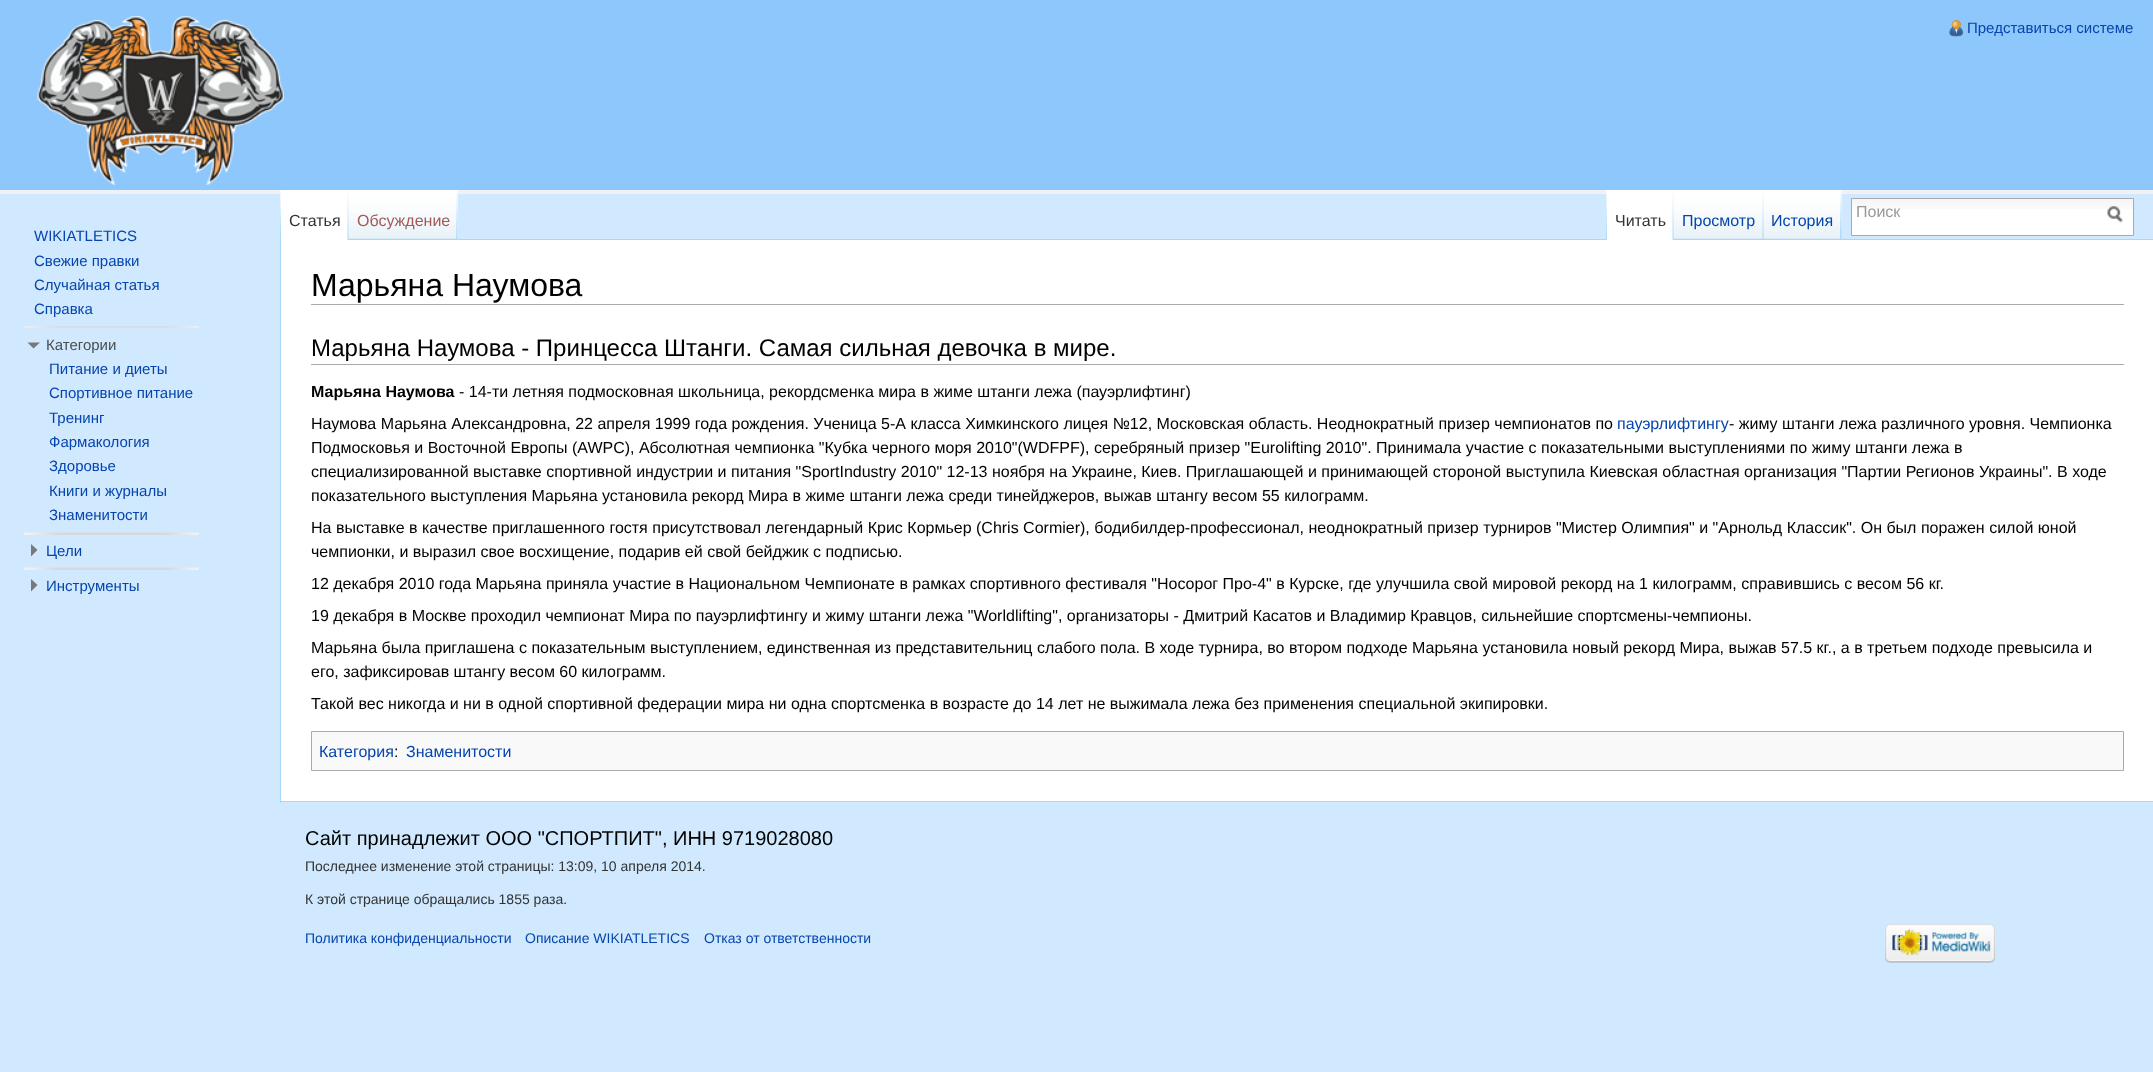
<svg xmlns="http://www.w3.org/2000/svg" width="2153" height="1072">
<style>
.a{font:15px Liberation Sans;fill:#0645ad}
.b{font:16px Liberation Sans;fill:#333}
.c{font:16px Liberation Sans;fill:#a55858}
.d{font:16px Liberation Sans;fill:#999}
.e{font:16px Liberation Sans;fill:#0645ad}
.f{font:15px Liberation Sans;fill:#4d4d4d}
.g{font:32px Liberation Sans;fill:#000}
.h{font:24px Liberation Sans;fill:#000}
.i{font:bold 16px Liberation Sans;fill:#000}
.j{font:16px Liberation Sans;fill:#000}
.k{font:20px Liberation Sans;fill:#000}
.l{font:14px Liberation Sans;fill:#333}
.m{font:14px Liberation Sans;fill:#0645ad}
</style>
<rect width="100%" height="100%" fill="#d0e9ff"/>
<path fill="#8dc7fc" d="M0 0h2153v190H0z"/>
<path fill="#eef1f7" d="M0 190h2153v4H0z"/>
<image href="1.png" x="1949" y="20" width="14" height="17"/>
<image href="2.png" x="280" y="190" width="1" height="49"/>
<path fill="#fff" d="M281 190h68v50H281z"/>
<image href="3.png" x="347" y="192" width="2" height="48"/>
<path fill="#f3f3f3" d="M457 190h1v50H457z"/>
<image href="4.png" x="348" y="190" width="110" height="50"/>
<image href="5.png" x="456" y="192" width="2" height="48"/>
<path fill="#fff" d="M1852 209h281v26H1852z"/>
<image href="6.png" x="1852" y="199" width="281" height="10"/>
<path fill="none" stroke="#aaa" d="M1851.5 198.5h282v37H1851.5z"/>
<image href="7.png" x="2107" y="206" width="16" height="17"/>
<image href="8.png" x="1606" y="190" width="1" height="49"/>
<image href="9.png" x="1841" y="190" width="1" height="49"/>
<path fill="#a7d7f9" d="M458 239h1695v1H458z"/>
<path fill="#fff" d="M1607 190h67v50H1607z"/>
<image href="3.png" x="1672" y="192" width="2" height="48"/>
<image href="10.png" x="1673" y="190" width="91" height="50"/>
<image href="11.png" x="1762" y="193" width="2" height="47"/>
<image href="12.png" x="1763" y="190" width="79" height="50"/>
<image href="13.png" x="1840" y="190" width="2" height="49"/>
<image href="14.png" x="37" y="16" width="247" height="169"/>
<image href="15.png" x="23" y="326" width="176" height="2"/>
<path fill="#797979" d="M40 342.5l-6.5 6l-6-6z"/>
<image href="16.png" x="23" y="532" width="176" height="3"/>
<path fill="#797979" d="M31 544l6.5 6l-6.5 6.5z"/>
<image href="16.png" x="23" y="567" width="176" height="3"/>
<path fill="#797979" d="M31 579l6.5 6l-6.5 6.5z"/>
<path fill="#fff" d="M281 240h1872v561H281z"/>
<path fill="#a7d7f9" d="M280 801h1873v1H280z"/>
<path fill="#a7d7f9" d="M280 239h1v564H280z"/>
<path fill="#aaa" d="M311 304h1813v1H311z"/>
<path fill="#aaa" d="M311 364h1813v1H311z"/>
<path fill="#f9f9f9" stroke="#aaa" d="M311.5 731.5h1812v39H311.5z"/>
<image href="17.png" x="1885" y="923" width="110" height="40"/>
<text class="a" x="1967" y="33">Представиться системе</text>
<text class="b" x="289" y="226">Статья</text>
<text class="c" x="357" y="226">Обсуждение</text>
<text class="d" x="1856" y="217">Поиск</text>
<text class="b" x="1615" y="226">Читать</text>
<text class="e" x="1682" y="226">Просмотр</text>
<text class="e" x="1771" y="226">История</text>
<text class="a" x="34" y="241">WIKIATLETICS</text>
<text class="a" x="34" y="266">Свежие правки</text>
<text class="a" x="34" y="290">Случайная статья</text>
<text class="a" x="34" y="314">Справка</text>
<text class="f" x="46" y="350">Категории</text>
<text class="a" x="49" y="374">Питание и диеты</text>
<text class="a" x="49" y="398">Спортивное питание</text>
<text class="a" x="49" y="423">Тренинг</text>
<text class="a" x="49" y="447">Фармакология</text>
<text class="a" x="49" y="471">Здоровье</text>
<text class="a" x="49" y="496">Книги и журналы</text>
<text class="a" x="49" y="520">Знаменитости</text>
<text class="a" x="46" y="556">Цели</text>
<text class="a" x="46" y="591">Инструменты</text>
<text class="g" x="311" y="296">Марьяна Наумова</text>
<text class="h" x="311" y="356">Марьяна Наумова - Принцесса Штанги. Самая сильная девочка в мире.</text>
<text class="i" x="311" y="397">Марьяна Наумова</text>
<text class="j" x="459" y="397">- 14-ти летняя подмосковная школьница, рекордсменка мира в жиме штанги лежа (пауэрлифтинг)</text>
<text class="j" x="311" y="429">Наумова Марьяна Александровна, 22 апреля 1999 года рождения. Ученица 5-А класса Химкинского лицея №12, Московская область. Неоднократный призер чемпионатов по</text>
<text class="e" x="1617" y="429">пауэрлифтингу</text>
<text class="j" x="1729" y="429">- жиму штанги лежа различного уровня. Чемпионка</text>
<text class="j" x="311" y="453">Подмосковья и Восточной Европы (AWPC), Абсолютная чемпионка "Кубка черного моря 2010"(WDFPF), серебряный призер "Eurolifting 2010". Принимала участие с показательными выступлениями по жиму штанги лежа в</text>
<text class="j" x="311" y="477">специализированной выставке спортивной индустрии и питания "SportIndustry 2010" 12-13 ноября на Украине, Киев. Приглашающей и принимающей стороной выступила Киевская областная организация "Партии Регионов Украины". В ходе</text>
<text class="j" x="311" y="501">показательного выступления Марьяна установила рекорд Мира в жиме штанги лежа среди тинейджеров, выжав штангу весом 55 килограмм.</text>
<text class="j" x="311" y="533">На выставке в качестве приглашенного гостя присутствовал легендарный Крис Кормьер (Chris Cormier), бодибилдер-профессионал, неоднократный призер турниров "Мистер Олимпия" и "Арнольд Классик". Он был поражен силой юной</text>
<text class="j" x="311" y="557">чемпионки, и выразил свое восхищение, подарив ей свой бейджик с подписью.</text>
<text class="j" x="311" y="589">12 декабря 2010 года Марьяна приняла участие в Национальном Чемпионате в рамках спортивного фестиваля "Носорог Про-4" в Курске, где улучшила свой мировой рекорд на 1 килограмм, справившись с весом 56 кг.</text>
<text class="j" x="311" y="621">19 декабря в Москве проходил чемпионат Мира по пауэрлифтингу и жиму штанги лежа "Worldlifting", организаторы - Дмитрий Касатов и Владимир Кравцов, сильнейшие спортсмены-чемпионы.</text>
<text class="j" x="311" y="653">Марьяна была приглашена с показательным выступлением, единственная из представительниц слабого пола. В ходе турнира, во втором подходе Марьяна установила новый рекорд Мира, выжав 57.5 кг., а в третьем подходе превысила и</text>
<text class="j" x="311" y="677">его, зафиксировав штангу весом 60 килограмм.</text>
<text class="j" x="311" y="709">Такой вес никогда и ни в одной спортивной федерации мира ни одна спортсменка в возрасте до 14 лет не выжимала лежа без применения специальной экипировки.</text>
<text class="e" x="319" y="757">Категория</text>
<text class="j" x="394" y="757">:</text>
<text class="e" x="406" y="757">Знаменитости</text>
<text class="k" x="305" y="845">Сайт принадлежит ООО "СПОРТПИТ", ИНН 9719028080</text>
<text class="l" x="305" y="871">Последнее изменение этой страницы: 13:09, 10 апреля 2014.</text>
<text class="l" x="305" y="904">К этой странице обращались 1855 раза.</text>
<text class="m" x="305" y="943">Политика конфиденциальности</text>
<text class="m" x="525" y="943">Описание WIKIATLETICS</text>
<text class="m" x="704" y="943">Отказ от ответственности</text>
</svg>
